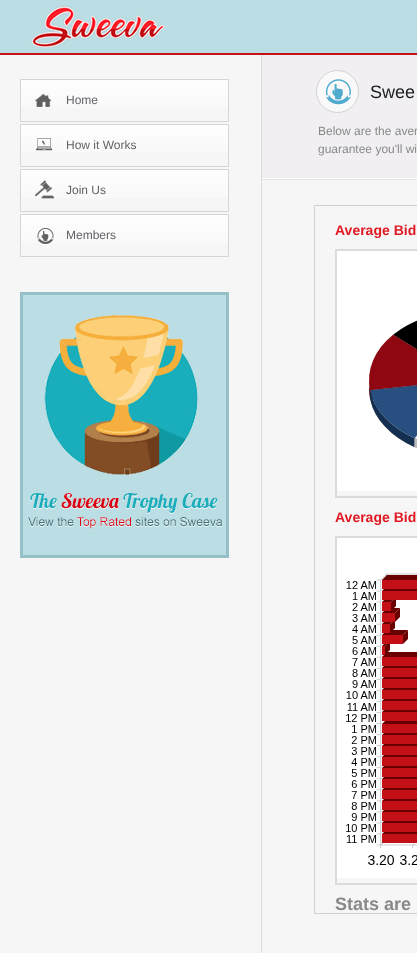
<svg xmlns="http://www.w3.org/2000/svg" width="417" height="953">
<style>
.a{font:12px Liberation Sans;fill:#656268}
.b{font:18px Liberation Sans;fill:#1b1e1f}
.c{font:12px Liberation Sans;fill:#898989}
.d{font:bold 14px Liberation Sans;fill:#e01822}
.e{font:bold 18px Liberation Sans;fill:#898989}
</style>
<defs>
<clipPath id="clip1"><path d="M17 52h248v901h-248zm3 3h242v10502h-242z" clip-rule="evenodd"/></clipPath>
<linearGradient id="g1" gradientUnits="userSpaceOnUse" x1="125" y1="80" x2="125" y2="121"><stop offset="0" stop-color="#fefefe"/><stop offset="1" stop-color="#f6f6f6"/></linearGradient>
<linearGradient id="g2" gradientUnits="userSpaceOnUse" x1="125" y1="125" x2="125" y2="166"><stop offset="0" stop-color="#fefefe"/><stop offset="1" stop-color="#f6f6f6"/></linearGradient>
<linearGradient id="g3" gradientUnits="userSpaceOnUse" x1="125" y1="170" x2="125" y2="211"><stop offset="0" stop-color="#fefefe"/><stop offset="1" stop-color="#f6f6f6"/></linearGradient>
<linearGradient id="g4" gradientUnits="userSpaceOnUse" x1="125" y1="215" x2="125" y2="256"><stop offset="0" stop-color="#fefefe"/><stop offset="1" stop-color="#f6f6f6"/></linearGradient>
</defs>
<rect width="100%" height="100%" fill="#f6f6f6"/>
<path fill="#bbdee5" d="M0 0h417v53H0z"/>
<path fill="#c4111a" d="M0 53h417v2H0z"/>
<image href="1.png" x="31" y="5" width="134" height="43"/>
<path fill="#e3e3e3" d="M262 179h155v1H262z"/>
<path fill="#f1eff2" d="M262 55h155v123H262z"/>
<path fill="#fbfbfb" d="M262 178h155v1H262z"/>
<g clip-path="url(#clip1)">
<path fill="#fff" filter="blur(0.5px)" d="M20 55h242v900H20z"/>
</g>
<path fill="#ddd" d="M261 55h1v898H261z"/>
<path fill="url(#g1)" d="M21 80h207v28H21z"/>
<path fill="none" stroke="#d5d5d5" d="M20.5 79.5h208v42H20.5z"/>
<image href="2.png" x="35" y="94" width="16" height="14"/>
<path fill="url(#g2)" d="M21 125h207v28H21z"/>
<path fill="none" stroke="#d5d5d5" d="M20.5 124.5h208v42H20.5z"/>
<image href="3.png" x="36" y="138" width="17" height="13"/>
<path fill="url(#g3)" d="M21 170h207v28H21z"/>
<path fill="none" stroke="#d5d5d5" d="M20.5 169.5h208v42H20.5z"/>
<image href="4.png" x="35" y="180" width="19" height="19"/>
<path fill="url(#g4)" d="M21 215h207v28H21z"/>
<path fill="none" stroke="#d5d5d5" d="M20.5 214.5h208v42H20.5z"/>
<image href="5.png" x="37" y="228" width="17" height="17"/>
<path fill="#bbdee5" stroke="#95c0c8" stroke-width="3" d="M21.5 293.5h206v263H21.5z"/>
<image href="6.png" x="28" y="314" width="194" height="216"/>
<circle fill="#f9f9f9" cx="337.5" cy="91.5" r="21.5"/>
<image href="7.png" x="325" y="79" width="26" height="26"/>
<circle fill="none" stroke="#d2cfd4" cx="337.5" cy="91.5" r="21"/>
<path fill="none" stroke="#d1ced3" d="M314.5 205.5h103v708H314.5z"/>
<path fill="none" stroke="#dbdbdb" stroke-width="2" d="M336 250h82v247H336z"/>
<image href="8.png" x="337" y="251" width="80" height="240"/>
<path fill="none" stroke="#dbdbdb" stroke-width="2" d="M336 537h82v347H336z"/>
<image href="9.png" x="337" y="538" width="80" height="340"/>
<text class="a" x="66" y="104">Home</text>
<text class="a" x="66" y="149">How it Works</text>
<text class="a" x="66" y="194">Join Us</text>
<text class="a" x="66" y="239">Members</text>
<text class="b" x="370" y="98">Swee</text>
<text class="c" x="318" y="135">Below are the aver</text>
<text class="c" x="318" y="153">guarantee you'll wi</text>
<text class="d" x="335" y="235">Average Bid</text>
<text class="d" x="335" y="522">Average Bid</text>
<text class="e" x="335" y="910">Stats are</text>
</svg>
